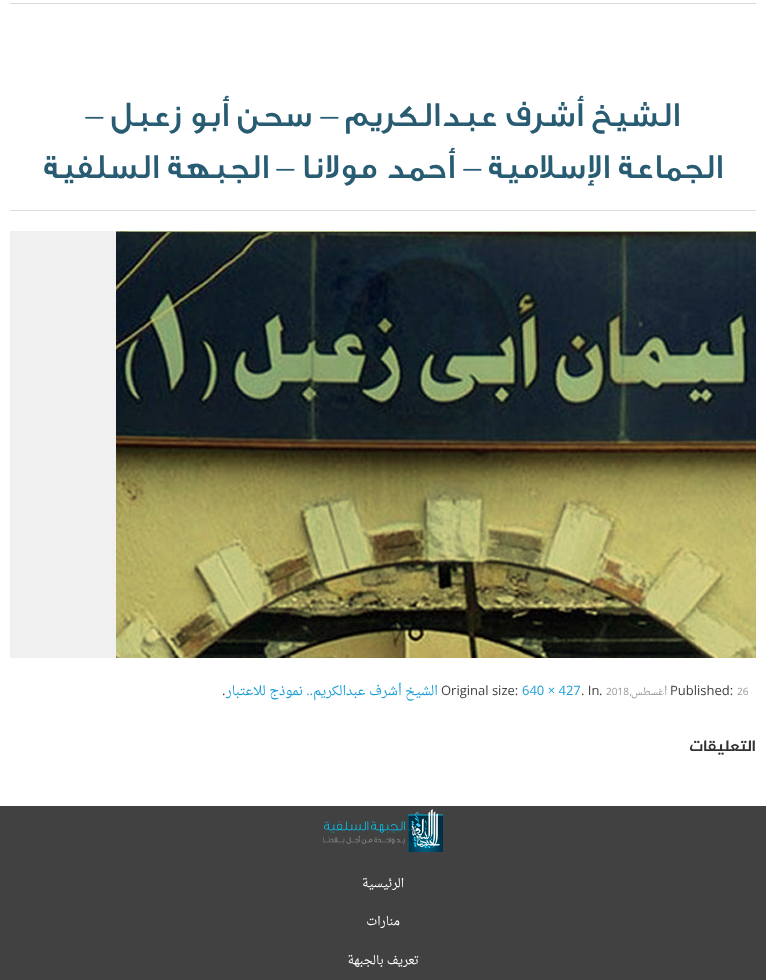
<svg xmlns="http://www.w3.org/2000/svg" width="766" height="980">
<style>
.a{font:500 35.25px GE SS;direction:rtl;fill:#285c73}
.b{font:35.25px Liberation Serif;direction:rtl;fill:#285c73}
.c{font:10px Open Sans;fill:#999}
.d{font:13px Open Sans;fill:#414141}
.e{font:10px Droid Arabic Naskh;direction:rtl;fill:#999}
.f{font:10px Open Sans;direction:rtl;fill:#999}
.g{font:13px Open Sans;fill:#1d9fd6}
.h{font:13px Droid Arabic Naskh;direction:rtl;fill:#1d9fd6}
.i{font:13px Open Sans;direction:rtl;fill:#1d9fd6}
.j{font:bold 16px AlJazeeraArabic;direction:rtl;fill:#333}
.k{font:12px Droid Arabic Naskh;direction:rtl;fill:#fff}
</style>
<rect width="100%" height="100%" fill="#fff"/>
<path fill="#dadada" d="M10 3h746v1H10z"/>
<path fill="#ddd" d="M10 210h746v1H10z"/>
<path fill="#f0f0f0" d="M10 231h106v427H10z"/>
<image href="1.png" x="116" y="231" width="640" height="427"/>
<path fill="#414141" d="M0 806h766v174H0z"/>
<image href="2.png" x="323" y="809" width="120" height="43"/>
<text class="a" x="680" y="126">الشيخ أشرف عبدالكريم</text>
<text class="b" x="338" y="126">–</text>
<text class="a" x="312" y="126">سحن أبو زعبل</text>
<text class="b" x="103" y="126">–</text>
<text class="a" x="723" y="178">الجماعة الإسلامية</text>
<text class="b" x="481" y="178">–</text>
<text class="a" x="455" y="178">أحمد مولانا</text>
<text class="b" x="294" y="178">–</text>
<text class="a" x="269" y="178">الجبهة السلفية</text>
<text class="c" x="737" y="695">26</text>
<text class="d" x="670" y="695">Published:</text>
<text class="e" x="667" y="695">أغسطس</text>
<text class="f" x="632" y="695">,</text>
<text class="c" x="606" y="695">2018</text>
<text class="d" x="599" y="695">.</text>
<text class="d" x="581" y="695">. In</text>
<text class="g" x="522" y="695">640 × 427</text>
<text class="d" x="441" y="695">Original size:</text>
<text class="h" x="438" y="695">الشيخ أشرف عبدالكريم</text>
<text class="i" x="313" y="695">..</text>
<text class="h" x="303" y="695">نموذج للاعتبار</text>
<text class="d" x="222" y="695">.</text>
<text class="j" x="756" y="751">التعليقات</text>
<text class="k" x="404" y="887">الرئيسية</text>
<text class="k" x="400" y="925">منارات</text>
<text class="k" x="419" y="964">تعريف بالجبهة</text>
</svg>
